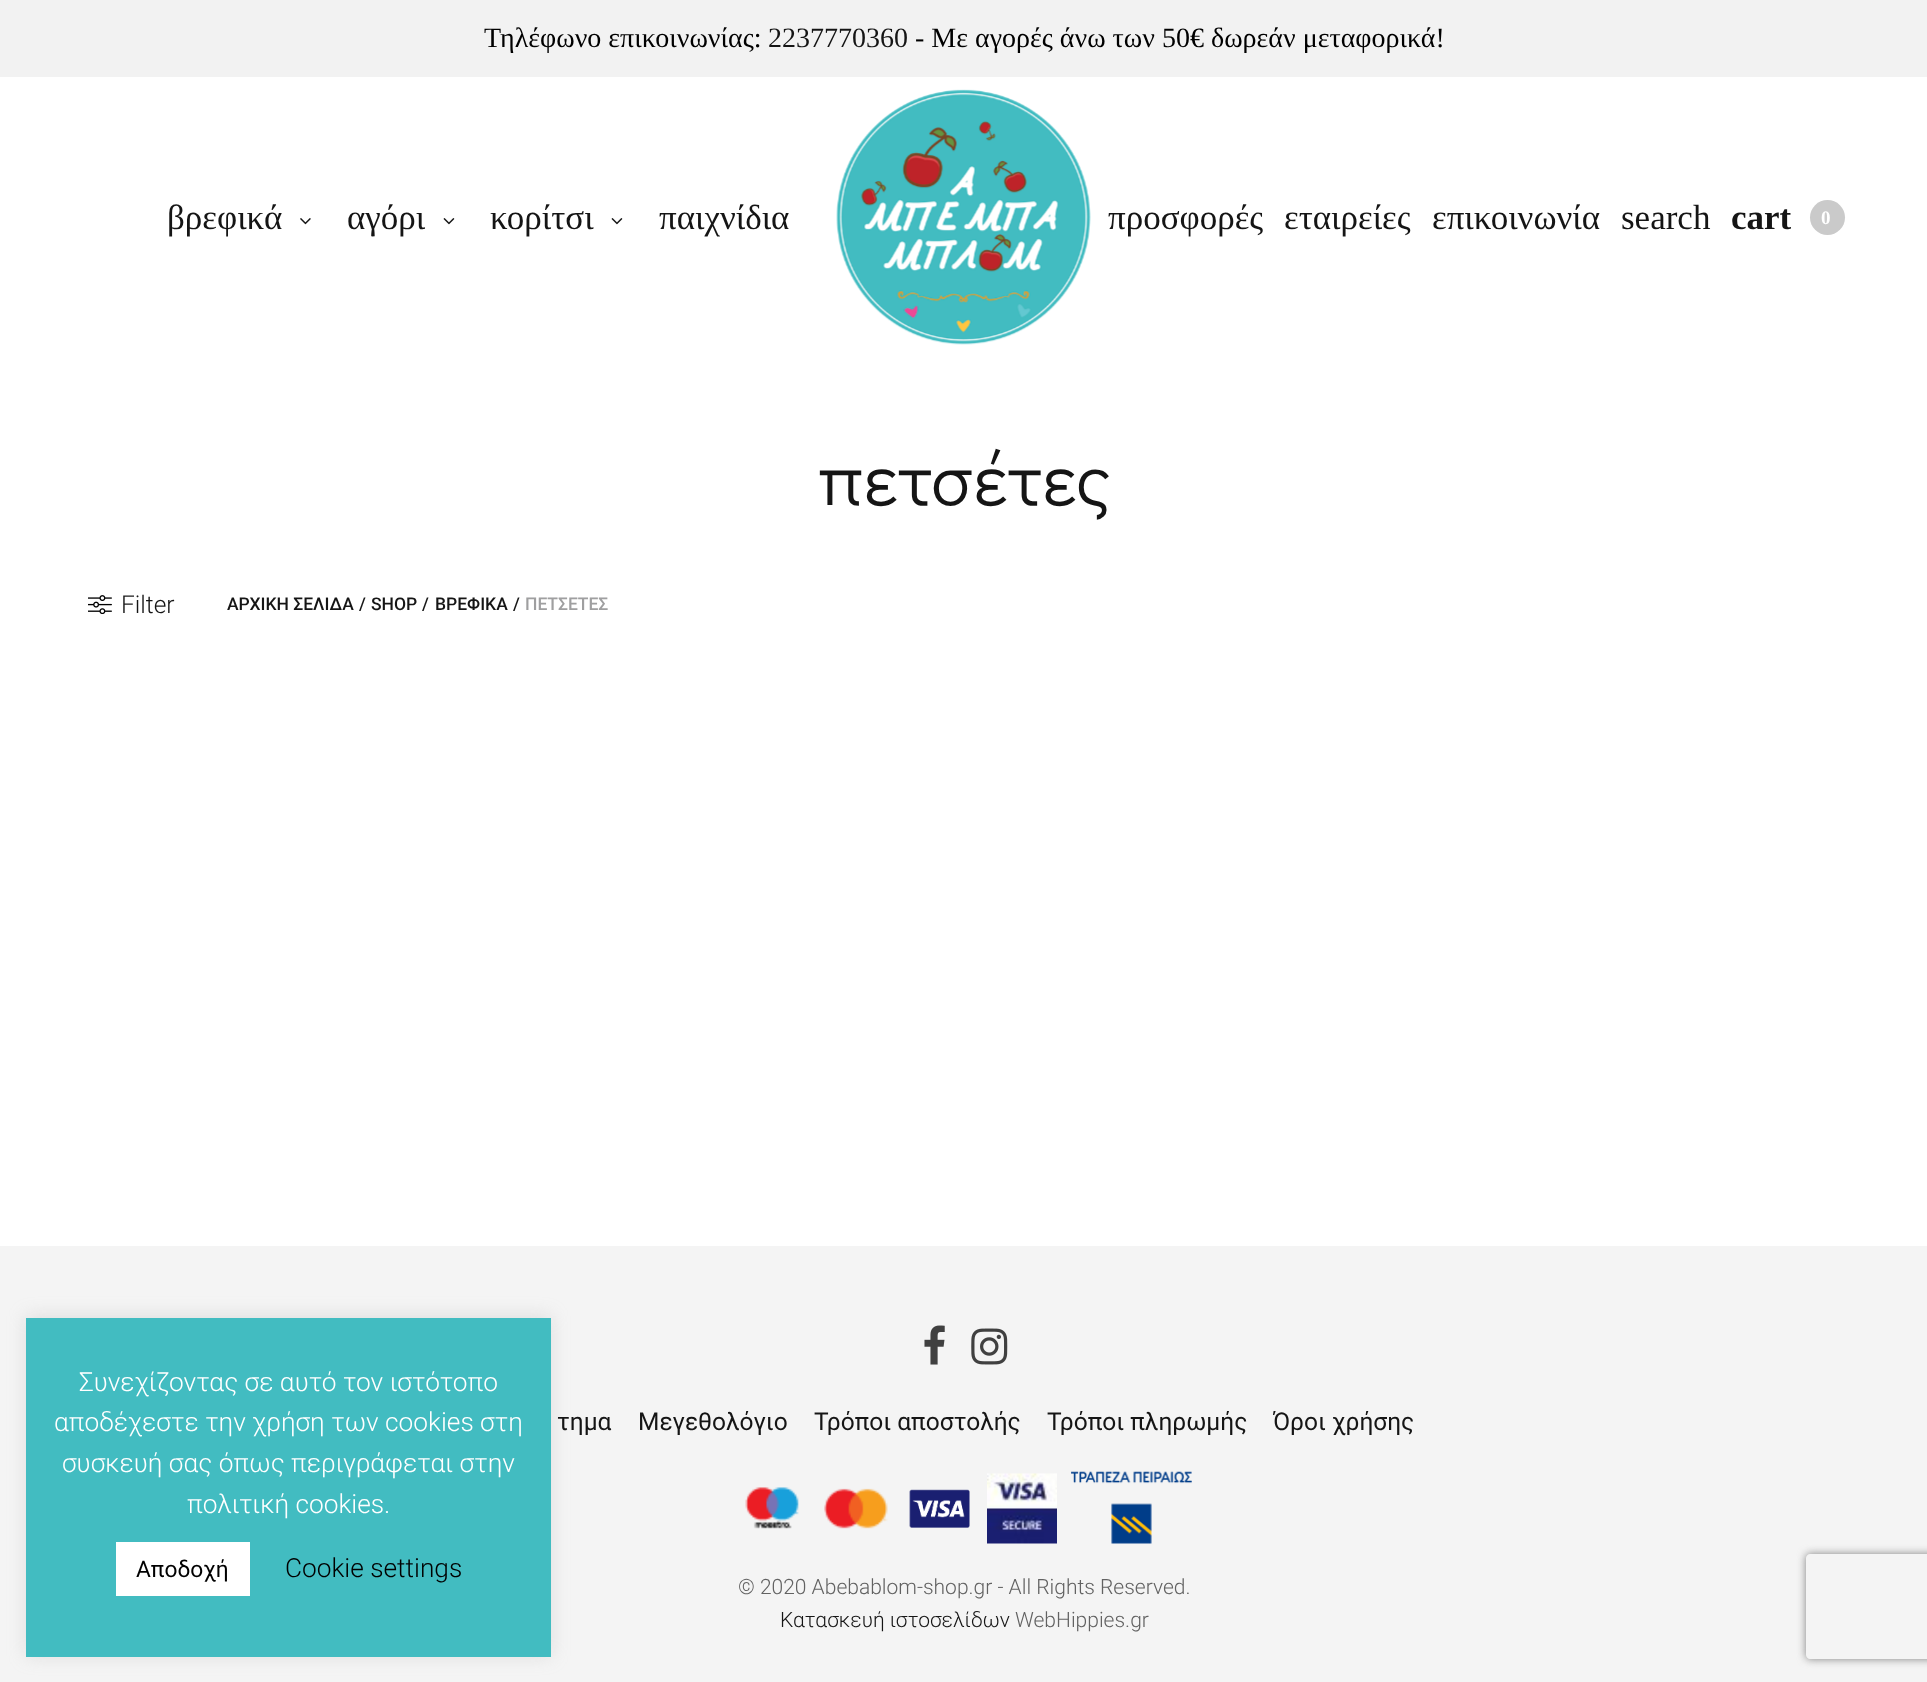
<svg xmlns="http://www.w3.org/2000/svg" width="1927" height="1682">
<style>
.a{font:28px Tinos;fill:#000}
.b{font:28px Tinos;fill:#151515}
.c{font:35px Tinos;fill:#151515}
.d{font:bold 35px Tinos;fill:#151515}
.e{font:bold 19px Tinos;fill:#fff}
.f{font:73.5px Didact Gothic;fill:#151515}
.g{font:300 24.5px Roboto;fill:#151515}
.h{font:500 17.5px Roboto;fill:#151515}
.i{font:500 17.5px Roboto;fill:#9f9fa0}
.j{font:24.5px Roboto;fill:#151515}
.k{font:300 21px Roboto;fill:#626262}
.l{font:300 21px Roboto;fill:#151515}
.m{font:300 26.25px Roboto;fill:#fff}
.n{font:22.75px Roboto;fill:#000}
.o{font:300 26.25px Roboto;fill:#000}
</style>
<defs>
<clipPath id="clip1"><path d="M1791 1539h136v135h-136zm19 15h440c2 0 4 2 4 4v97c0 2-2 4-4 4h-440c-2 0-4-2-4-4v-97c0-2 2-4 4-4z" clip-rule="evenodd"/></clipPath>
</defs>
<rect width="100%" height="100%" fill="#fff"/>
<path fill="#f2f2f2" d="M0 0h1927v77H0z"/>
<image href="1.png" x="300" y="218" width="11" height="7"/>
<image href="2.png" x="443" y="218" width="12" height="7"/>
<image href="2.png" x="611" y="218" width="12" height="7"/>
<image href="3.png" x="836" y="89" width="255" height="256"/>
<circle fill="#cacaca" cx="1827.5" cy="217.5" r="17.5"/>
<image href="4.png" x="88" y="595" width="24" height="19"/>
<path fill="#f4f4f4" d="M0 1246h1927v436H0z"/>
<image href="5.png" x="924" y="1325" width="21" height="40"/>
<image href="6.png" x="971" y="1328" width="37" height="37"/>
<image href="7.png" x="745" y="1487" width="54" height="42"/>
<image href="8.png" x="824" y="1488" width="64" height="41"/>
<image href="9.png" x="909" y="1489" width="61" height="39"/>
<image href="10.png" x="987" y="1473" width="70" height="71"/>
<image href="11.png" x="1071" y="1471" width="121" height="73"/>
<path fill="#acabab4d" filter="blur(9px)" d="M26 1316h525v340H26z"/>
<path fill="#42bcc1" d="M26 1318h525v339H26z"/>
<path fill="#fff" d="M116 1542h134v54H116z"/>
<g clip-path="url(#clip1)">
<rect fill="#808080" filter="blur(4.5px)" x="1806" y="1554" width="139" height="105" rx="4"/>
</g>
<text class="a" x="484" y="47">Τηλέφωνο επικοινωνίας:</text>
<text class="b" x="768" y="47">2237770360</text>
<text class="a" x="915" y="47">- Με αγορές άνω των 50€ δωρεάν μεταφορικά!</text>
<text class="c" x="167" y="229">βρεφικά</text>
<text class="c" x="347" y="229">αγόρι</text>
<text class="c" x="490" y="229">κορίτσι</text>
<text class="c" x="659" y="229">παιχνίδια</text>
<text class="c" x="1108" y="229">προσφορές</text>
<text class="c" x="1284" y="229">εταιρείες</text>
<text class="c" x="1432" y="229">επικοινωνία</text>
<text class="c" x="1621" y="229">search</text>
<text class="d" x="1731" y="229">cart</text>
<text class="e" x="1821" y="224">0</text>
<text class="f" x="818" y="505">πετσέτες</text>
<text class="g" x="121" y="613">Filter</text>
<text class="h" x="227" y="610">ΑΡΧΙΚΗ ΣΕΛΙΔΑ</text>
<text class="h" x="359" y="610">/</text>
<text class="h" x="371" y="610">SHOP</text>
<text class="h" x="422" y="610">/</text>
<text class="h" x="435" y="610">ΒΡΕΦΙΚΑ</text>
<text class="h" x="513" y="610">/</text>
<text class="i" x="525" y="610">ΠΕΤΣΕΤΕΣ</text>
<text class="j" x="557" y="1430">τημα</text>
<text class="j" x="638" y="1430">Μεγεθολόγιο</text>
<text class="j" x="814" y="1430">Τρόποι αποστολής</text>
<text class="j" x="1047" y="1430">Τρόποι πληρωμής</text>
<text class="j" x="1273" y="1430">Όροι χρήσης</text>
<text class="k" x="738" y="1594">© 2020 Αbebablom-shop.gr - All Rights Reserved.</text>
<text class="l" x="780" y="1627">Κατασκευή ιστοσελίδων</text>
<text class="k" x="1015" y="1627">WebHippies.gr</text>
<text class="m" x="79" y="1391">Συνεχίζοντας σε αυτό τον ιστότοπο</text>
<text class="m" x="54" y="1431">αποδέχεστε την χρήση των cookies στη</text>
<text class="m" x="62" y="1472">συσκευή σας όπως περιγράφεται στην</text>
<text class="m" x="187" y="1513">πολιτική cookies.</text>
<text class="n" x="136" y="1577">Αποδοχή</text>
<text class="o" x="285" y="1577">Cookie settings</text>
</svg>
